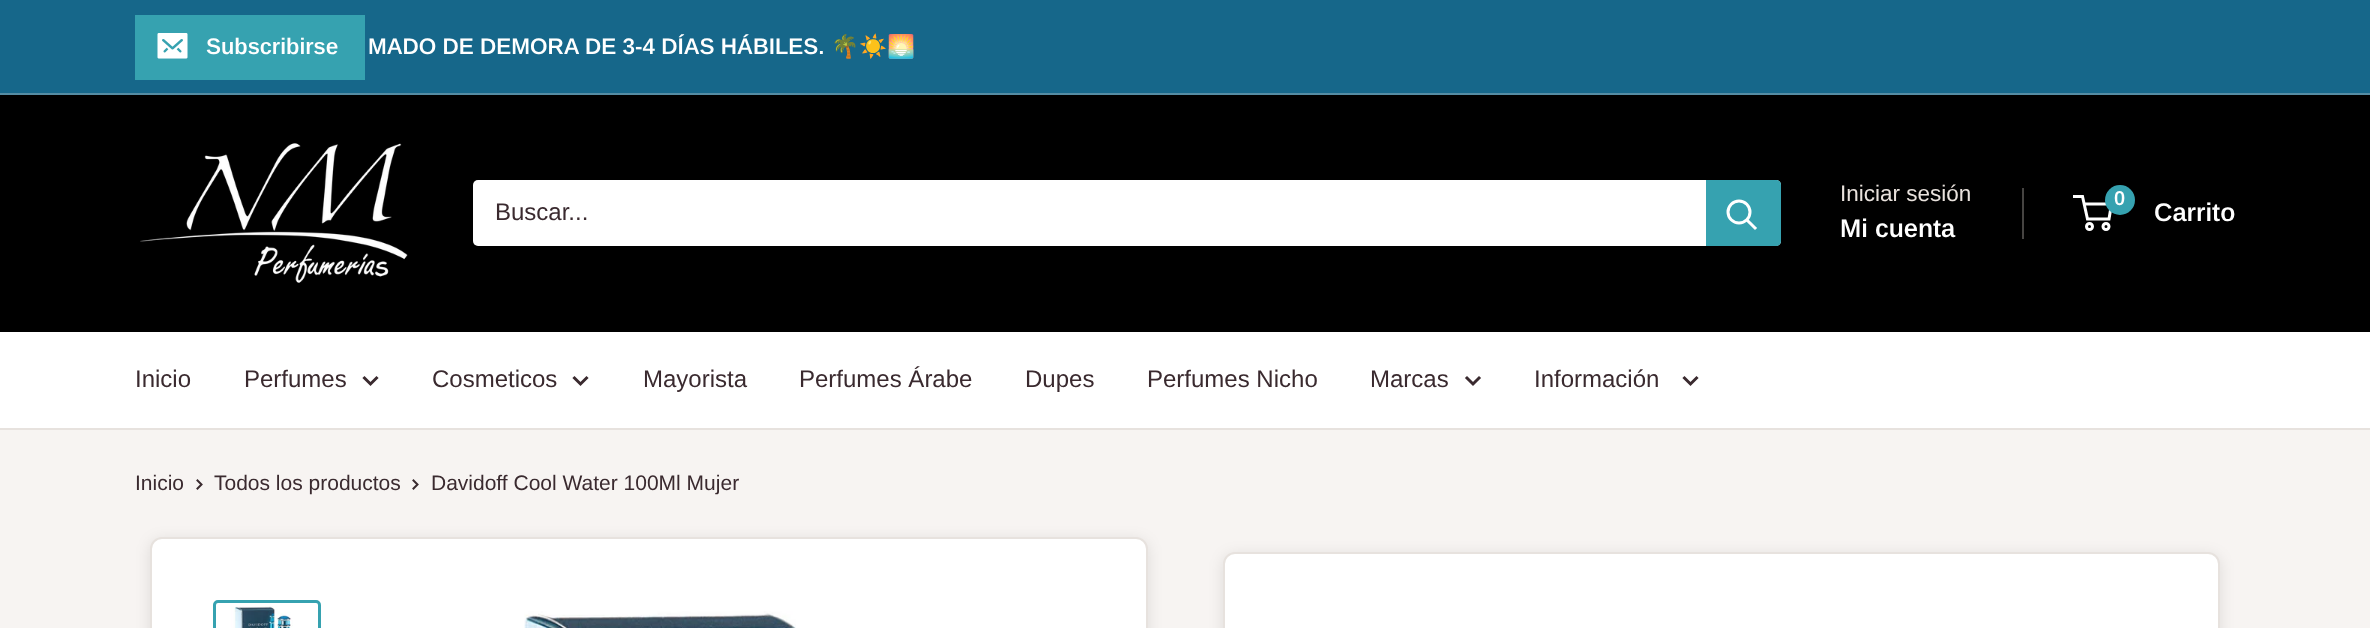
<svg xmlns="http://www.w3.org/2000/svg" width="2370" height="628">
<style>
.a{font:600 22.5px Arimo;fill:#fff}
.b{font:bold 22.5px Noto Color Emoji;fill:#fff}
.c{font:24px Arimo;fill:#3a2a2f}
.d{font:22.5px Arimo;fill:#e9e2dd}
.e{font:600 25.5px Arimo;fill:#fff}
.f{font:600 20px Arimo;fill:#fff}
.g{font:21px Arimo;fill:#3a2a2f}
</style>
<rect width="100%" height="100%" fill="#f7f4f2"/>
<path fill="#16678a" d="M0 0h2370v93H0z"/>
<path fill="#558ca3" d="M0 93h2370v2H0z"/>
<path fill="#36a2b0" d="M135 78v2h230v-63h-1v61z"/>
<path fill="#36a2b0" d="M135 15h230v63H135z"/>
<image href="1.png" x="157" y="33" width="31" height="26"/>
<path fill="#000" d="M0 95h2370v237H0z"/>
<image href="2.png" x="140" y="143" width="268" height="140"/>
<rect fill="#fff" x="473" y="180" width="1308" height="66" rx="5"/>
<path fill="#36a2b0" d="M1706 180h70c3 0 5 2 5 5v56c0 3-2 5-5 5h-70z"/>
<path fill="none" stroke="#fff" stroke-width="3" stroke-linecap="square" d="M1755 228l-7.5-7.5"/>
<circle fill="none" stroke="#fff" stroke-width="3" cx="1739" cy="212" r="11"/>
<path fill="#464442" d="M2022 188h2v51H2022z"/>
<circle fill="none" stroke="#fff" stroke-width="3" cx="2089.5" cy="226.5" r="3"/>
<circle fill="none" stroke="#fff" stroke-width="3" cx="2106" cy="226.5" r="3"/>
<path fill="none" stroke="#fff" stroke-width="3" d="M2084 204h27.5l-2.5 15h-21.5l-5-22.5h-9.5"/>
<circle fill="#36a2b0" cx="2120" cy="200" r="15"/>
<path fill="#fff" d="M0 332h2370v96H0z"/>
<path fill="#e7e2de" d="M0 428h2370v2H0z"/>
<path fill="none" stroke="#3a2a2f" stroke-width="3" stroke-linecap="square" d="M376.5 378l-6 6l-6-6"/>
<path fill="none" stroke="#3a2a2f" stroke-width="3" stroke-linecap="square" d="M586.5 378l-6 6l-6-6"/>
<path fill="none" stroke="#3a2a2f" stroke-width="3" stroke-linecap="square" d="M1479 378l-6 6l-6-6"/>
<path fill="none" stroke="#3a2a2f" stroke-width="3" stroke-linecap="square" d="M1696.5 378l-6 6l-6-6"/>
<path fill="none" stroke="#3a2a2f" stroke-width="2" stroke-linecap="square" d="M197.5 480.5l4 4l-4 4"/>
<path fill="none" stroke="#3a2a2f" stroke-width="2" stroke-linecap="square" d="M413.5 480.5l4 4l-4 4"/>
<rect fill="#0000001a" filter="blur(7.5px)" x="150" y="540" width="998" height="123" rx="12"/>
<rect fill="#fff" stroke="#e7e2de" stroke-width="2" x="151" y="538" width="996" height="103" rx="11"/>
<rect fill="none" stroke="#36a2b0" stroke-width="3" x="214.5" y="601.5" width="105" height="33" rx="3.5"/>
<image href="3.png" x="231" y="606" width="62" height="22"/>
<image href="4.png" x="524" y="611" width="272" height="17"/>
<rect fill="#0000001a" filter="blur(7.5px)" x="1223" y="555" width="997" height="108" rx="12"/>
<rect fill="#fff" stroke="#e7e2de" stroke-width="2" x="1224" y="553" width="995" height="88" rx="11"/>
<text class="a" x="206" y="54">Subscribirse</text>
<text class="a" x="368" y="54">MADO DE DEMORA DE 3-4 DÍAS HÁBILES.</text>
<text class="b" x="831" y="54">🌴☀️🌅</text>
<text class="c" x="495" y="220">Buscar...</text>
<text class="d" x="1840" y="201">Iniciar sesión</text>
<text class="e" x="1840" y="237">Mi cuenta</text>
<text class="f" x="2114" y="205">0</text>
<text class="e" x="2154" y="221">Carrito</text>
<text class="c" x="135" y="387">Inicio</text>
<text class="c" x="244" y="387">Perfumes</text>
<text class="c" x="432" y="387">Cosmeticos</text>
<text class="c" x="643" y="387">Mayorista</text>
<text class="c" x="799" y="387">Perfumes Árabe</text>
<text class="c" x="1025" y="387">Dupes</text>
<text class="c" x="1147" y="387">Perfumes Nicho</text>
<text class="c" x="1370" y="387">Marcas</text>
<text class="c" x="1534" y="387">Información</text>
<text class="g" x="135" y="490">Inicio</text>
<text class="g" x="214" y="490">Todos los productos</text>
<text class="g" x="431" y="490">Davidoff Cool Water 100Ml Mujer</text>
</svg>
